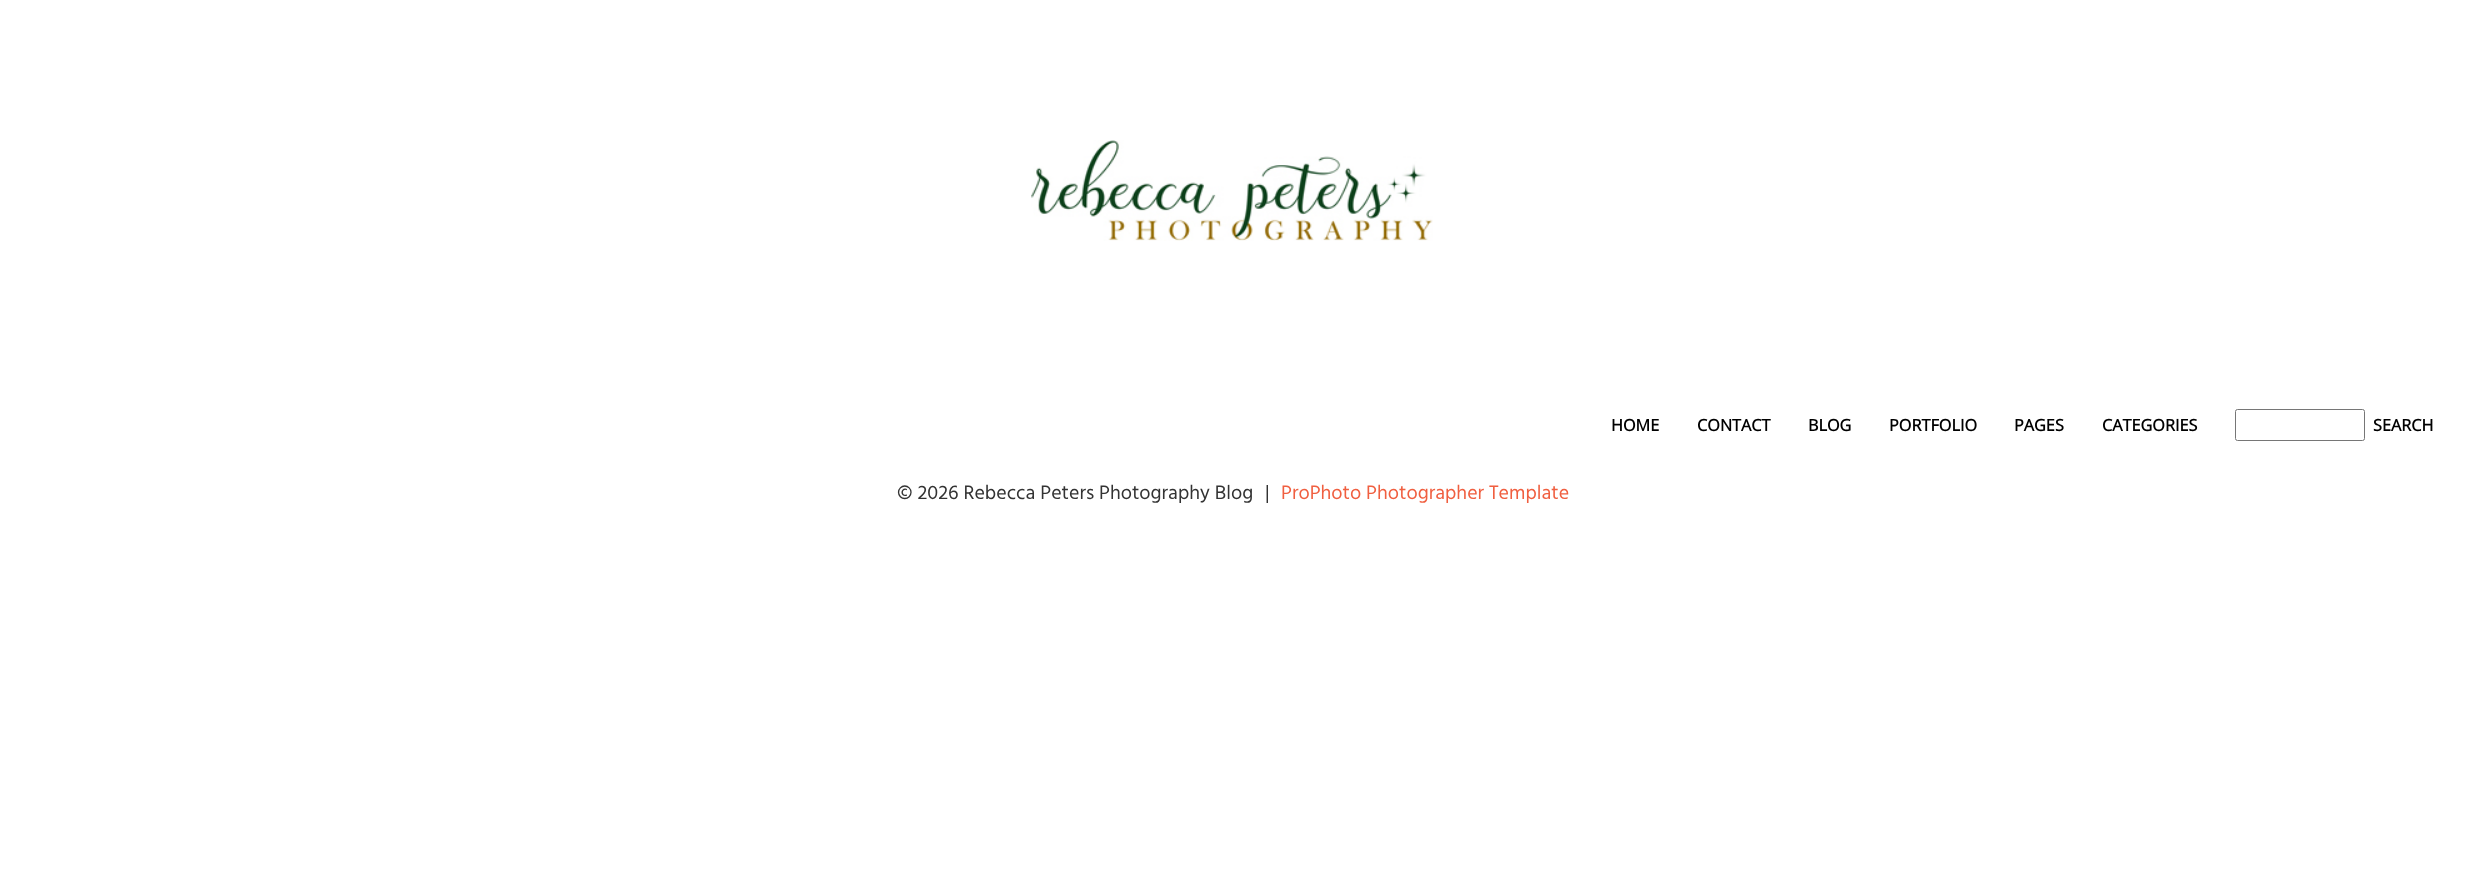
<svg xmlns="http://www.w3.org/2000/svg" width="2466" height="872">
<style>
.a{font:bold 16.25px Open Sans;fill:#000}
.b{font:20px Hind Vadodara;fill:#333}
.c{font:20px Hind Vadodara;fill:#f05f40}
</style>
<rect width="100%" height="100%" fill="#fff"/>
<image href="1.png" x="1031" y="140" width="402" height="101"/>
<rect fill="none" stroke="#767676" x="2235.5" y="409.5" width="129" height="31" rx="2"/>
<text class="a" x="1611" y="431">HOME</text>
<text class="a" x="1697" y="431">CONTACT</text>
<text class="a" x="1808" y="431">BLOG</text>
<text class="a" x="1889" y="431">PORTFOLIO</text>
<text class="a" x="2014" y="431">PAGES</text>
<text class="a" x="2102" y="431">CATEGORIES</text>
<text class="a" x="2373" y="431">SEARCH</text>
<text class="b" x="897" y="499">© 2026 Rebecca Peters Photography Blog</text>
<text class="b" x="1265" y="499">|</text>
<text class="c" x="1281" y="499">ProPhoto Photographer Template</text>
</svg>
